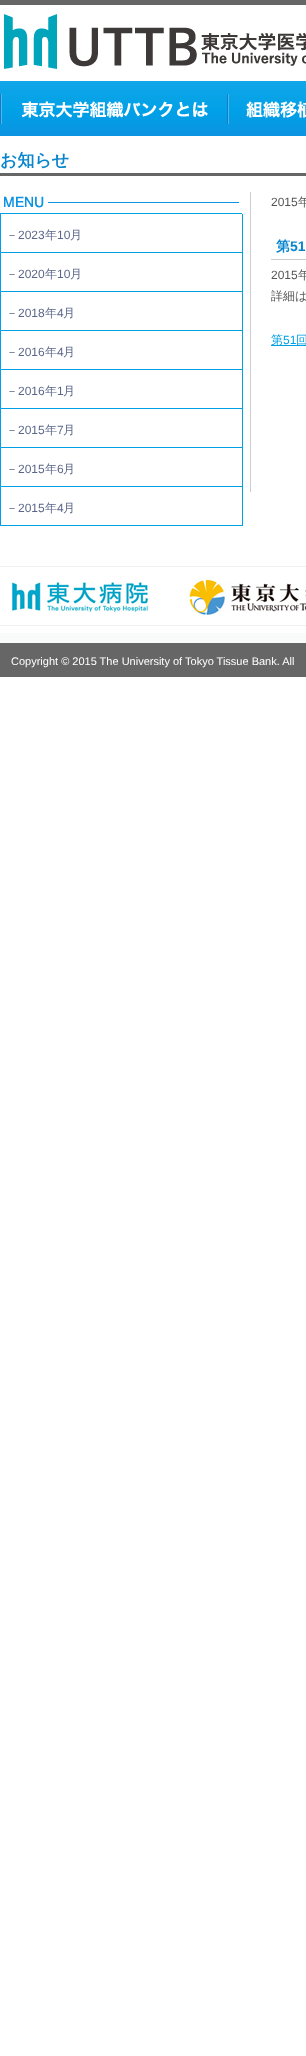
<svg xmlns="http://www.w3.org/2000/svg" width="306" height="2056">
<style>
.a{font:bold 17px WenQuanYi Zen Hei;fill:#0985cd}
.b{font:500 12px WenQuanYi Zen Hei;fill:#5b678a}
.c{font:12px Liberation Sans;fill:#5b678a}
.d{font:12px Liberation Sans;fill:#555}
.e{font:500 12px WenQuanYi Zen Hei;fill:#555}
.f{font:bold 14px WenQuanYi Zen Hei;fill:#0985cd}
.g{font:bold 14px Liberation Sans;fill:#0985cd}
.h{font:500 12px WenQuanYi Zen Hei;fill:#00a0e7}
.i{font:12px Liberation Sans;fill:#00a0e7}
.j{font:11px Liberation Sans;fill:#fff}
</style>
<rect width="100%" height="100%" fill="#fff"/>
<path fill="#666" d="M0 0h306v5H0z"/>
<image href="1.png" x="4" y="14" width="302" height="55"/>
<image href="2.png" x="0" y="81" width="306" height="55"/>
<image href="3.png" x="0" y="94" width="306" height="30"/>
<path fill="#666" d="M0 173h306v3H0z"/>
<image href="4.png" x="4" y="196" width="235" height="12"/>
<path fill="#00a0e7" d="M0 213h242v1H0z"/>
<path fill="#00a0e7" d="M242 214h1v312H242z"/>
<path fill="#00a0e7" d="M0 252h243v1H0z"/>
<path fill="#00a0e7" d="M0 214h1v39H0z"/>
<path fill="#00a0e7" d="M0 291h243v1H0z"/>
<path fill="#00a0e7" d="M0 253h1v39H0z"/>
<path fill="#00a0e7" d="M0 330h243v1H0z"/>
<path fill="#00a0e7" d="M0 292h1v39H0z"/>
<path fill="#00a0e7" d="M0 369h243v1H0z"/>
<path fill="#00a0e7" d="M0 331h1v39H0z"/>
<path fill="#00a0e7" d="M0 408h243v1H0z"/>
<path fill="#00a0e7" d="M0 370h1v39H0z"/>
<path fill="#00a0e7" d="M0 447h243v1H0z"/>
<path fill="#00a0e7" d="M0 409h1v39H0z"/>
<path fill="#00a0e7" d="M0 486h243v1H0z"/>
<path fill="#00a0e7" d="M0 448h1v39H0z"/>
<path fill="#00a0e7" d="M0 525h243v1H0z"/>
<path fill="#00a0e7" d="M0 487h1v39H0z"/>
<path fill="#ccc" d="M250 192h1v300H250z"/>
<path fill="#ccc" d="M271 259h35v1H271z"/>
<path fill="#00a0e7" d="M271 345h35v1H271z"/>
<path fill="#eef1f3" d="M0 566h306v1H0z"/>
<path fill="#eef1f3" d="M0 625h306v1H0z"/>
<image href="5.png" x="10" y="582" width="139" height="30"/>
<image href="6.png" x="186" y="577" width="120" height="40"/>
<path fill="#666" d="M0 643h306v34H0z"/>
<path fill="#f9fafa" d="M0 633h306v10H0z"/>
<text class="a" x="0" y="166">お知らせ</text>
<text class="b" x="6" y="239">－</text>
<text class="c" x="18" y="239">2023</text>
<text class="b" x="45" y="239">年</text>
<text class="c" x="57" y="239">10</text>
<text class="b" x="70" y="239">月</text>
<text class="b" x="6" y="278">－</text>
<text class="c" x="18" y="278">2020</text>
<text class="b" x="45" y="278">年</text>
<text class="c" x="57" y="278">10</text>
<text class="b" x="70" y="278">月</text>
<text class="b" x="6" y="317">－</text>
<text class="c" x="18" y="317">2018</text>
<text class="b" x="45" y="317">年</text>
<text class="c" x="57" y="317">4</text>
<text class="b" x="63" y="317">月</text>
<text class="b" x="6" y="356">－</text>
<text class="c" x="18" y="356">2016</text>
<text class="b" x="45" y="356">年</text>
<text class="c" x="57" y="356">4</text>
<text class="b" x="63" y="356">月</text>
<text class="b" x="6" y="395">－</text>
<text class="c" x="18" y="395">2016</text>
<text class="b" x="45" y="395">年</text>
<text class="c" x="57" y="395">1</text>
<text class="b" x="63" y="395">月</text>
<text class="b" x="6" y="434">－</text>
<text class="c" x="18" y="434">2015</text>
<text class="b" x="45" y="434">年</text>
<text class="c" x="57" y="434">7</text>
<text class="b" x="63" y="434">月</text>
<text class="b" x="6" y="473">－</text>
<text class="c" x="18" y="473">2015</text>
<text class="b" x="45" y="473">年</text>
<text class="c" x="57" y="473">6</text>
<text class="b" x="63" y="473">月</text>
<text class="b" x="6" y="512">－</text>
<text class="c" x="18" y="512">2015</text>
<text class="b" x="45" y="512">年</text>
<text class="c" x="57" y="512">4</text>
<text class="b" x="63" y="512">月</text>
<text class="d" x="271" y="206">2015</text>
<text class="e" x="298" y="206">年</text>
<text class="f" x="276" y="251">第</text>
<text class="g" x="290" y="251">51</text>
<text class="d" x="271" y="279">2015</text>
<text class="e" x="298" y="279">年</text>
<text class="e" x="271" y="300">詳細は</text>
<text class="h" x="271" y="344">第</text>
<text class="i" x="283" y="344">51</text>
<text class="h" x="296" y="344">回</text>
<text class="j" x="11" y="665">Copyright © 2015 The University of Tokyo Tissue Bank. All</text>
</svg>
